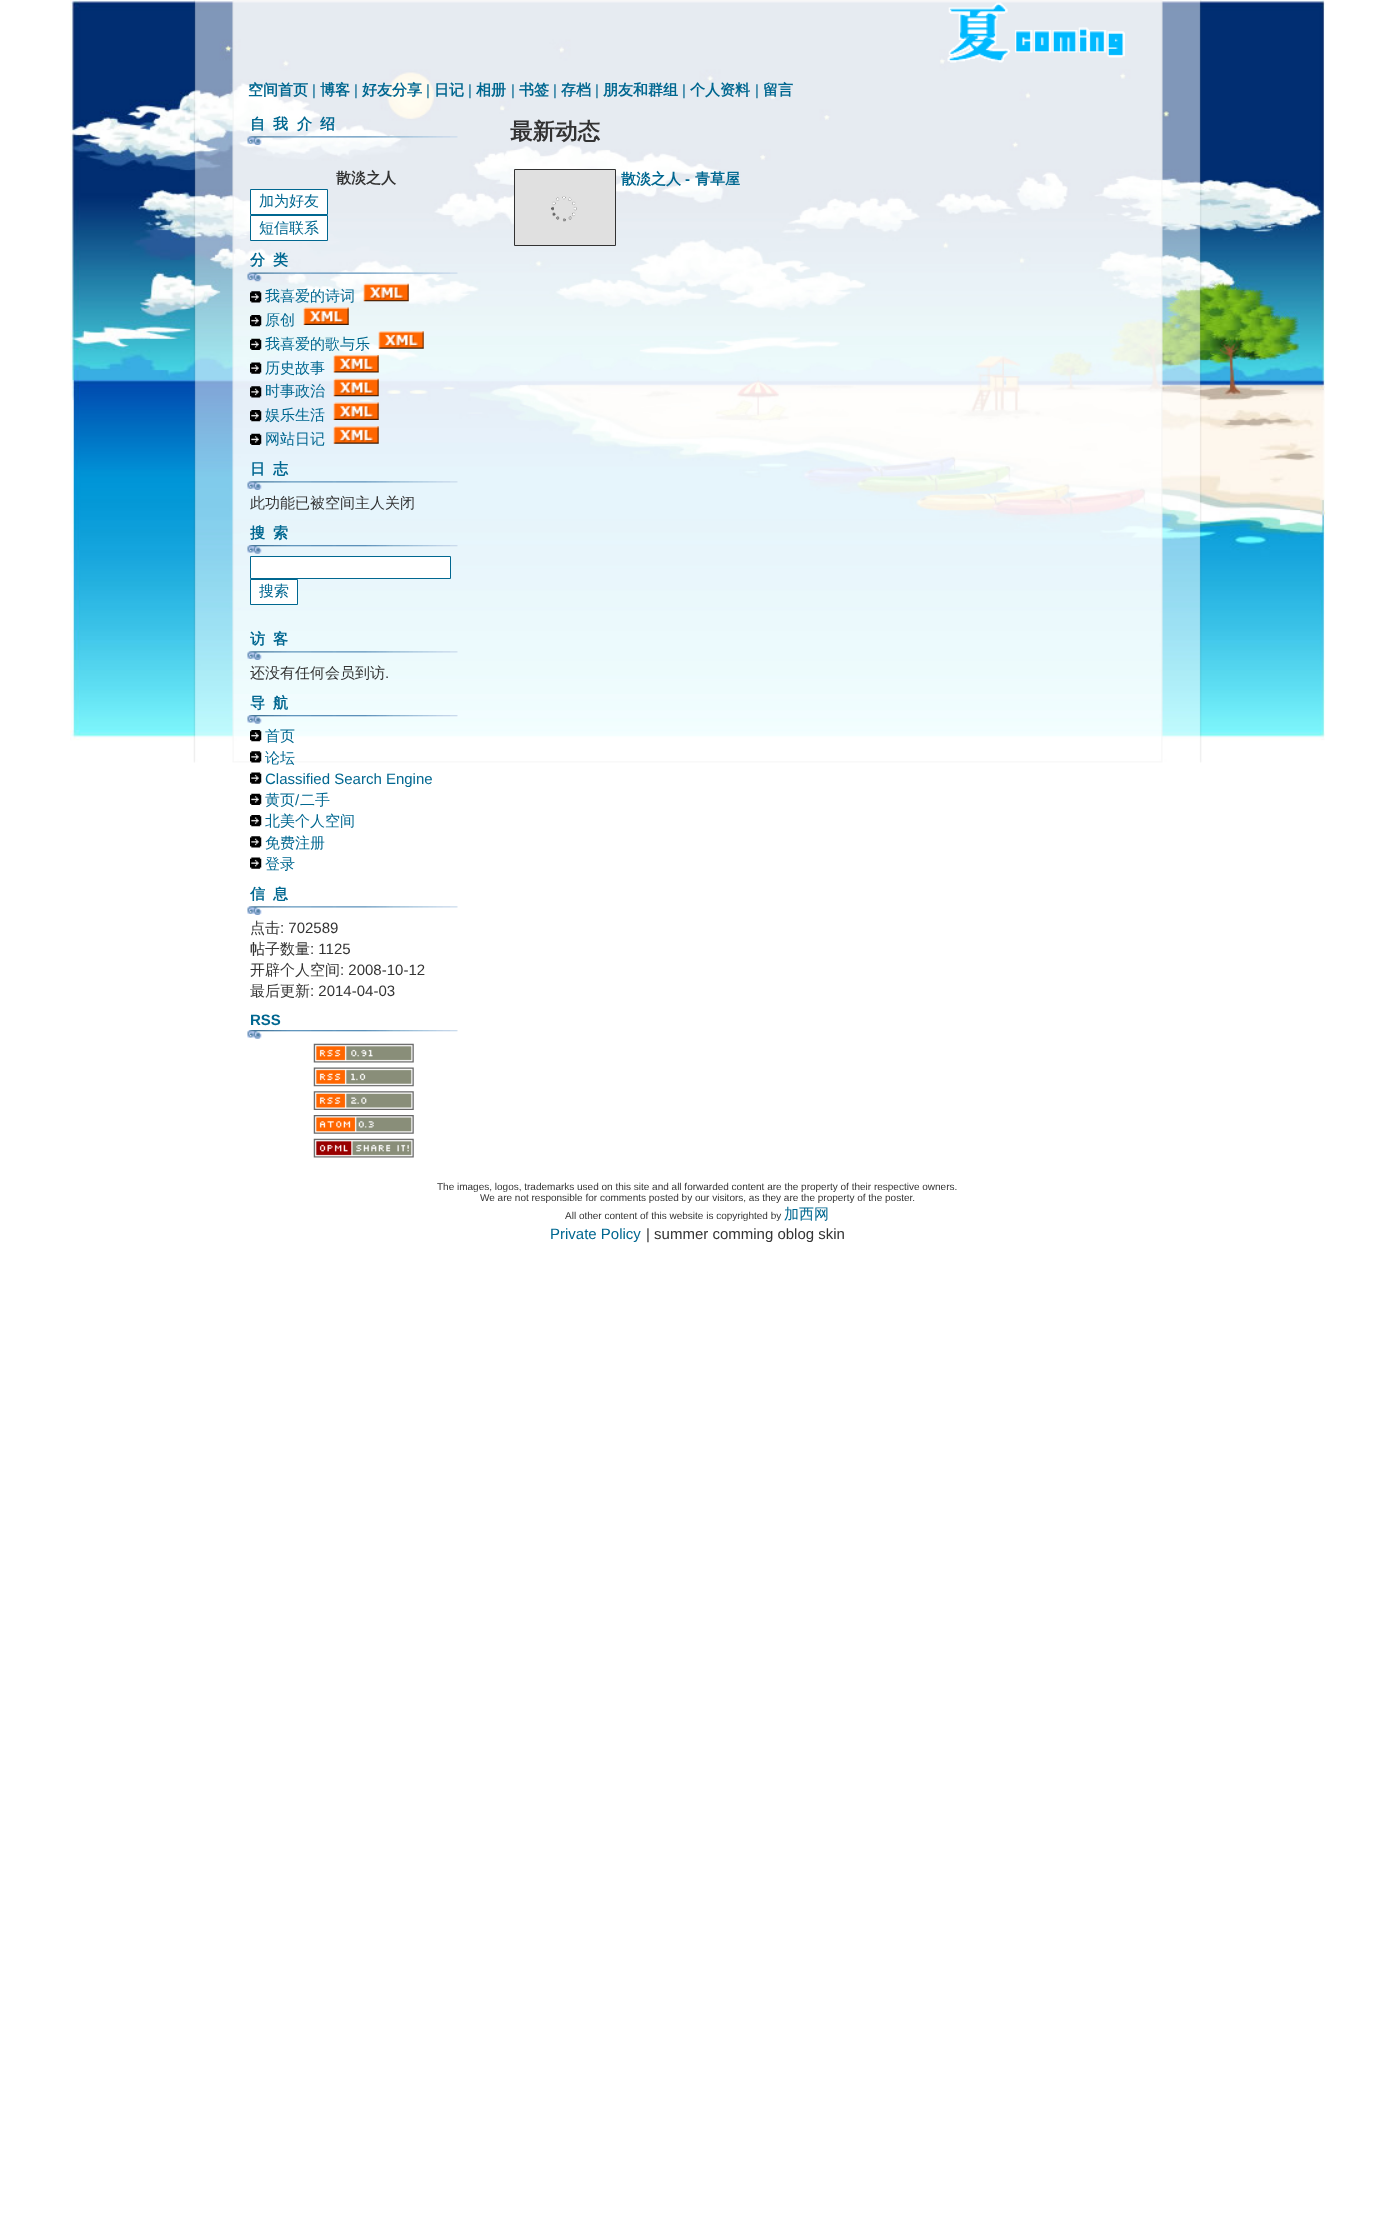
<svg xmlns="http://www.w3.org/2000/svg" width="1394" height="2213">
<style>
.a{font:bold 15px WenQuanYi Zen Hei;fill:#006790}
.b{font:15px Liberation Sans;fill:#006790}
.c{font:bold 15px WenQuanYi Zen Hei;fill:#333}
.d{font:500 15px WenQuanYi Zen Hei;fill:#006790}
.e{font:500 15px WenQuanYi Zen Hei;fill:#333}
.f{font:15px Liberation Sans;fill:#333}
.g{font:bold 15px Liberation Sans;fill:#006790}
.h{font:bold 22.5px WenQuanYi Zen Hei;fill:#333}
.i{font:10px Liberation Sans;fill:#333}
</style>
<rect width="100%" height="100%" fill="#fff"/>
<image href="1.png" x="70" y="0" width="1256" height="763"/>
<image href="2.png" x="947" y="2" width="178" height="61"/>
<image href="3.png" x="247" y="136" width="211" height="9"/>
<path fill="#fff" stroke="#006790" d="M250.5 189.5h77v25H250.5z"/>
<path fill="#fff" stroke="#006790" d="M250.5 215.5h77v25H250.5z"/>
<image href="4.png" x="247" y="272" width="211" height="10"/>
<image href="5.png" x="250" y="291" width="12" height="12"/>
<image href="6.png" x="363" y="283" width="46" height="19"/>
<image href="7.png" x="250" y="315" width="12" height="12"/>
<image href="8.png" x="303" y="307" width="46" height="18"/>
<image href="9.png" x="250" y="338" width="12" height="12"/>
<image href="10.png" x="378" y="331" width="46" height="18"/>
<image href="11.png" x="250" y="362" width="12" height="12"/>
<image href="12.png" x="333" y="355" width="46" height="18"/>
<image href="13.png" x="250" y="386" width="12" height="12"/>
<image href="14.png" x="333" y="378" width="46" height="19"/>
<image href="15.png" x="250" y="410" width="12" height="12"/>
<image href="16.png" x="333" y="402" width="46" height="18"/>
<image href="17.png" x="250" y="433" width="12" height="12"/>
<image href="18.png" x="333" y="426" width="46" height="18"/>
<image href="19.png" x="247" y="481" width="211" height="9"/>
<image href="20.png" x="247" y="545" width="211" height="9"/>
<path fill="#fff" stroke="#006790" d="M250.5 556.5h200v22H250.5z"/>
<path fill="#fff" stroke="#006790" d="M250.5 579.5h47v25H250.5z"/>
<image href="21.png" x="247" y="651" width="211" height="9"/>
<image href="22.png" x="247" y="715" width="211" height="9"/>
<image href="23.png" x="250" y="730" width="12" height="12"/>
<image href="24.png" x="250" y="751" width="12" height="12"/>
<image href="25.png" x="250" y="772" width="12" height="12"/>
<image href="26.png" x="250" y="793" width="12" height="12"/>
<image href="27.png" x="250" y="815" width="12" height="12"/>
<image href="28.png" x="250" y="836" width="12" height="12"/>
<image href="29.png" x="250" y="857" width="12" height="12"/>
<image href="30.png" x="247" y="906" width="211" height="9"/>
<image href="31.png" x="247" y="1030" width="211" height="9"/>
<image href="32.png" x="313" y="1043" width="101" height="20"/>
<image href="33.png" x="313" y="1067" width="101" height="20"/>
<image href="34.png" x="313" y="1091" width="101" height="19"/>
<image href="35.png" x="313" y="1115" width="101" height="19"/>
<image href="36.png" x="313" y="1138" width="101" height="20"/>
<path fill="none" stroke="#333" d="M514.5 169.5h101v76H514.5z"/>
<path fill="#e0e0e0" d="M515 170h100v75H515z"/>
<image href="37.png" x="551" y="196" width="26" height="26"/>
<text class="a" x="248" y="95">空间首页</text>
<text class="b" x="312" y="95">|</text>
<text class="a" x="320" y="95">博客</text>
<text class="b" x="354" y="95">|</text>
<text class="a" x="362" y="95">好友分享</text>
<text class="b" x="426" y="95">|</text>
<text class="a" x="434" y="95">日记</text>
<text class="b" x="468" y="95">|</text>
<text class="a" x="476" y="95">相册</text>
<text class="b" x="511" y="95">|</text>
<text class="a" x="519" y="95">书签</text>
<text class="b" x="553" y="95">|</text>
<text class="a" x="561" y="95">存档</text>
<text class="b" x="595" y="95">|</text>
<text class="a" x="603" y="95">朋友和群组</text>
<text class="b" x="682" y="95">|</text>
<text class="a" x="690" y="95">个人资料</text>
<text class="b" x="755" y="95">|</text>
<text class="a" x="763" y="95">留言</text>
<text class="a" x="250" y="129">自</text>
<text class="a" x="273" y="129">我</text>
<text class="a" x="297" y="129">介</text>
<text class="a" x="320" y="129">绍</text>
<text class="c" x="336" y="183">散淡之人</text>
<text class="d" x="259" y="206">加为好友</text>
<text class="d" x="259" y="233">短信联系</text>
<text class="a" x="250" y="265">分</text>
<text class="a" x="273" y="265">类</text>
<text class="d" x="265" y="301">我喜爱的诗词</text>
<text class="d" x="265" y="325">原创</text>
<text class="d" x="265" y="349">我喜爱的歌与乐</text>
<text class="d" x="265" y="373">历史故事</text>
<text class="d" x="265" y="396">时事政治</text>
<text class="d" x="265" y="420">娱乐生活</text>
<text class="d" x="265" y="444">网站日记</text>
<text class="a" x="250" y="474">日</text>
<text class="a" x="273" y="474">志</text>
<text class="e" x="250" y="508">此功能已被空间主人关闭</text>
<text class="a" x="250" y="538">搜</text>
<text class="a" x="273" y="538">索</text>
<text class="d" x="259" y="596">搜索</text>
<text class="a" x="250" y="644">访</text>
<text class="a" x="273" y="644">客</text>
<text class="e" x="250" y="678">还没有任何会员到访</text>
<text class="f" x="385" y="678">.</text>
<text class="a" x="250" y="708">导</text>
<text class="a" x="273" y="708">航</text>
<text class="d" x="265" y="741">首页</text>
<text class="d" x="265" y="763">论坛</text>
<text class="b" x="265" y="784">Classified Search Engine</text>
<text class="d" x="265" y="805">黄页</text>
<text class="b" x="295" y="805">/</text>
<text class="d" x="300" y="805">二手</text>
<text class="d" x="265" y="826">北美个人空间</text>
<text class="d" x="265" y="848">免费注册</text>
<text class="d" x="265" y="869">登录</text>
<text class="a" x="250" y="899">信</text>
<text class="a" x="273" y="899">息</text>
<text class="e" x="250" y="933">点击</text>
<text class="f" x="280" y="933">: 702589</text>
<text class="e" x="250" y="954">帖子数量</text>
<text class="f" x="310" y="954">: 1125</text>
<text class="e" x="250" y="975">开辟个人空间</text>
<text class="f" x="340" y="975">: 2008-10-12</text>
<text class="e" x="250" y="996">最后更新</text>
<text class="f" x="310" y="996">: 2014-04-03</text>
<text class="g" x="250" y="1025">RSS</text>
<text class="h" x="510" y="139">最新动态</text>
<text class="a" x="621" y="184">散淡之人</text>
<text class="g" x="685" y="184">-</text>
<text class="a" x="695" y="184">青草屋</text>
<text class="i" x="437" y="1190">The images, logos, trademarks used on this site and all forwarded content are the property of their respective owners.</text>
<text class="i" x="480" y="1201">We are not responsible for comments posted by our visitors, as they are the property of the poster.</text>
<text class="i" x="565" y="1219">All other content of this website is copyrighted by</text>
<text class="d" x="784" y="1219">加西网</text>
<text class="b" x="550" y="1239">Private Policy</text>
<text class="f" x="646" y="1239">| summer comming oblog skin</text>
</svg>
